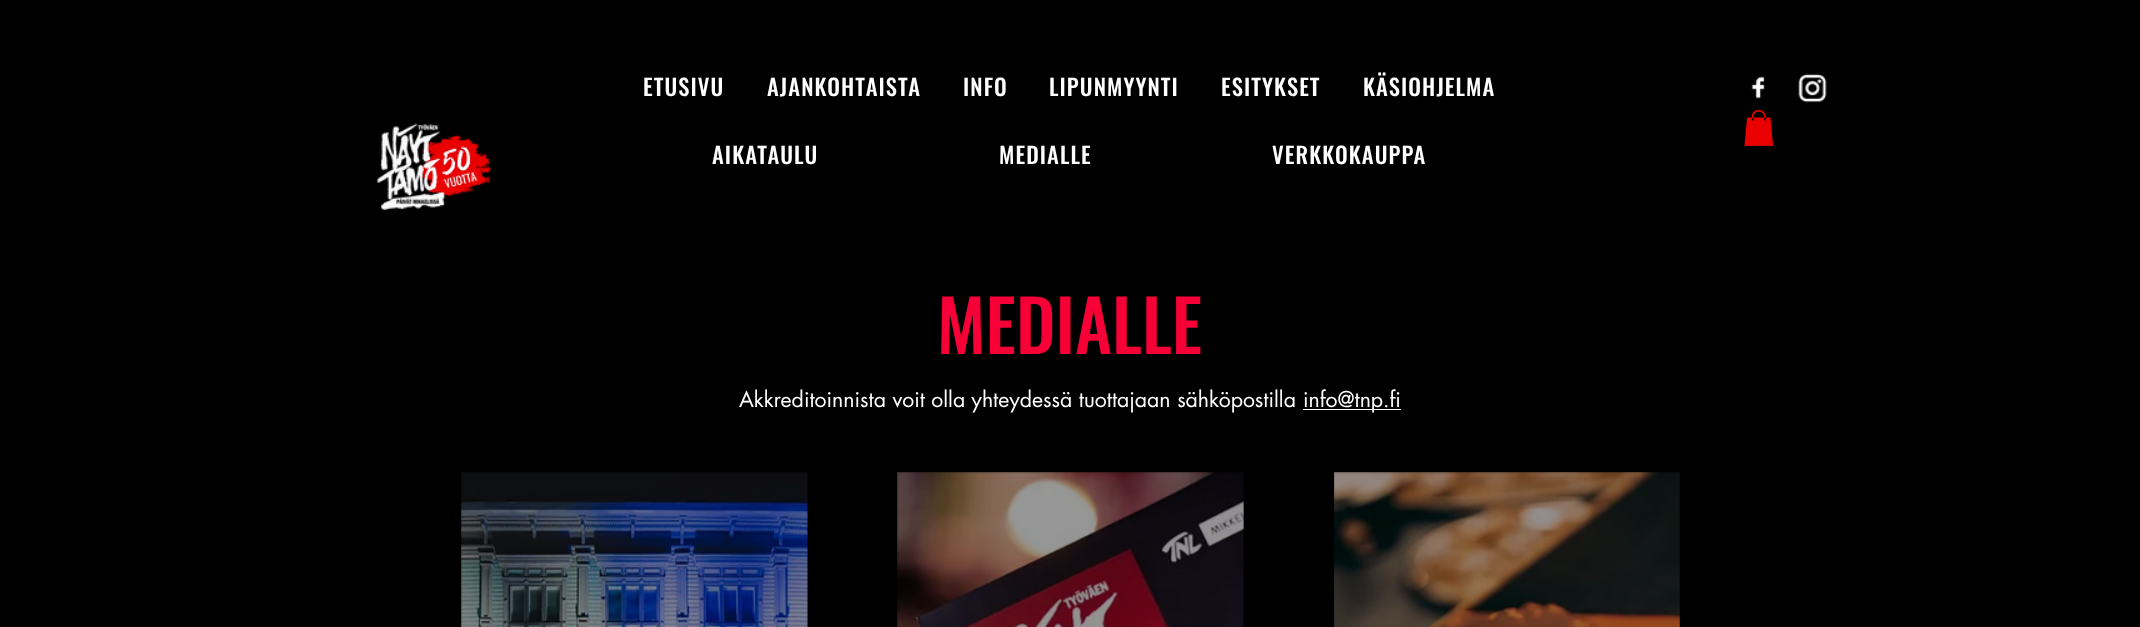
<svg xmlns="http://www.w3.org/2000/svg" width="2140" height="627">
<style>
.a{font:500 22.5px Oswald;letter-spacing:1.1px;fill:#fff}
.b{font:500 71px Oswald;fill:#f60037}
.c{font:21.25px futura;fill:#fff}
</style>
<rect width="100%" height="100%" fill="#000"/>
<image href="1.png" x="1751" y="76" width="14" height="23"/>
<image href="2.png" x="1798" y="73" width="29" height="30"/>
<image href="3.png" x="377" y="123" width="114" height="88"/>
<image href="4.png" x="1744" y="110" width="29" height="36"/>
<path fill="#fff" d="M1303 409h98v1H1303z"/>
<image href="5.png" x="461" y="472" width="347" height="155"/>
<image href="6.png" x="897" y="472" width="347" height="155"/>
<image href="7.png" x="1334" y="472" width="346" height="155"/>
<text class="a" x="643" y="96">ETUSIVU</text>
<text class="a" x="767" y="96">AJANKOHTAISTA</text>
<text class="a" x="963" y="96">INFO</text>
<text class="a" x="1049" y="96">LIPUNMYYNTI</text>
<text class="a" x="1221" y="96">ESITYKSET</text>
<text class="a" x="1363" y="96">KÄSIOHJELMA</text>
<text class="a" x="712" y="164">AIKATAULU</text>
<text class="a" x="999" y="164">MEDIALLE</text>
<text class="a" x="1272" y="164">VERKKOKAUPPA</text>
<text class="b" x="937" y="354">MEDIALLE</text>
<text class="c" x="739" y="407">Akkreditoinnista voit olla yhteydessä tuottajaan sähköpostilla</text>
<text class="c" x="1303" y="407">info@tnp.fi</text>
</svg>
